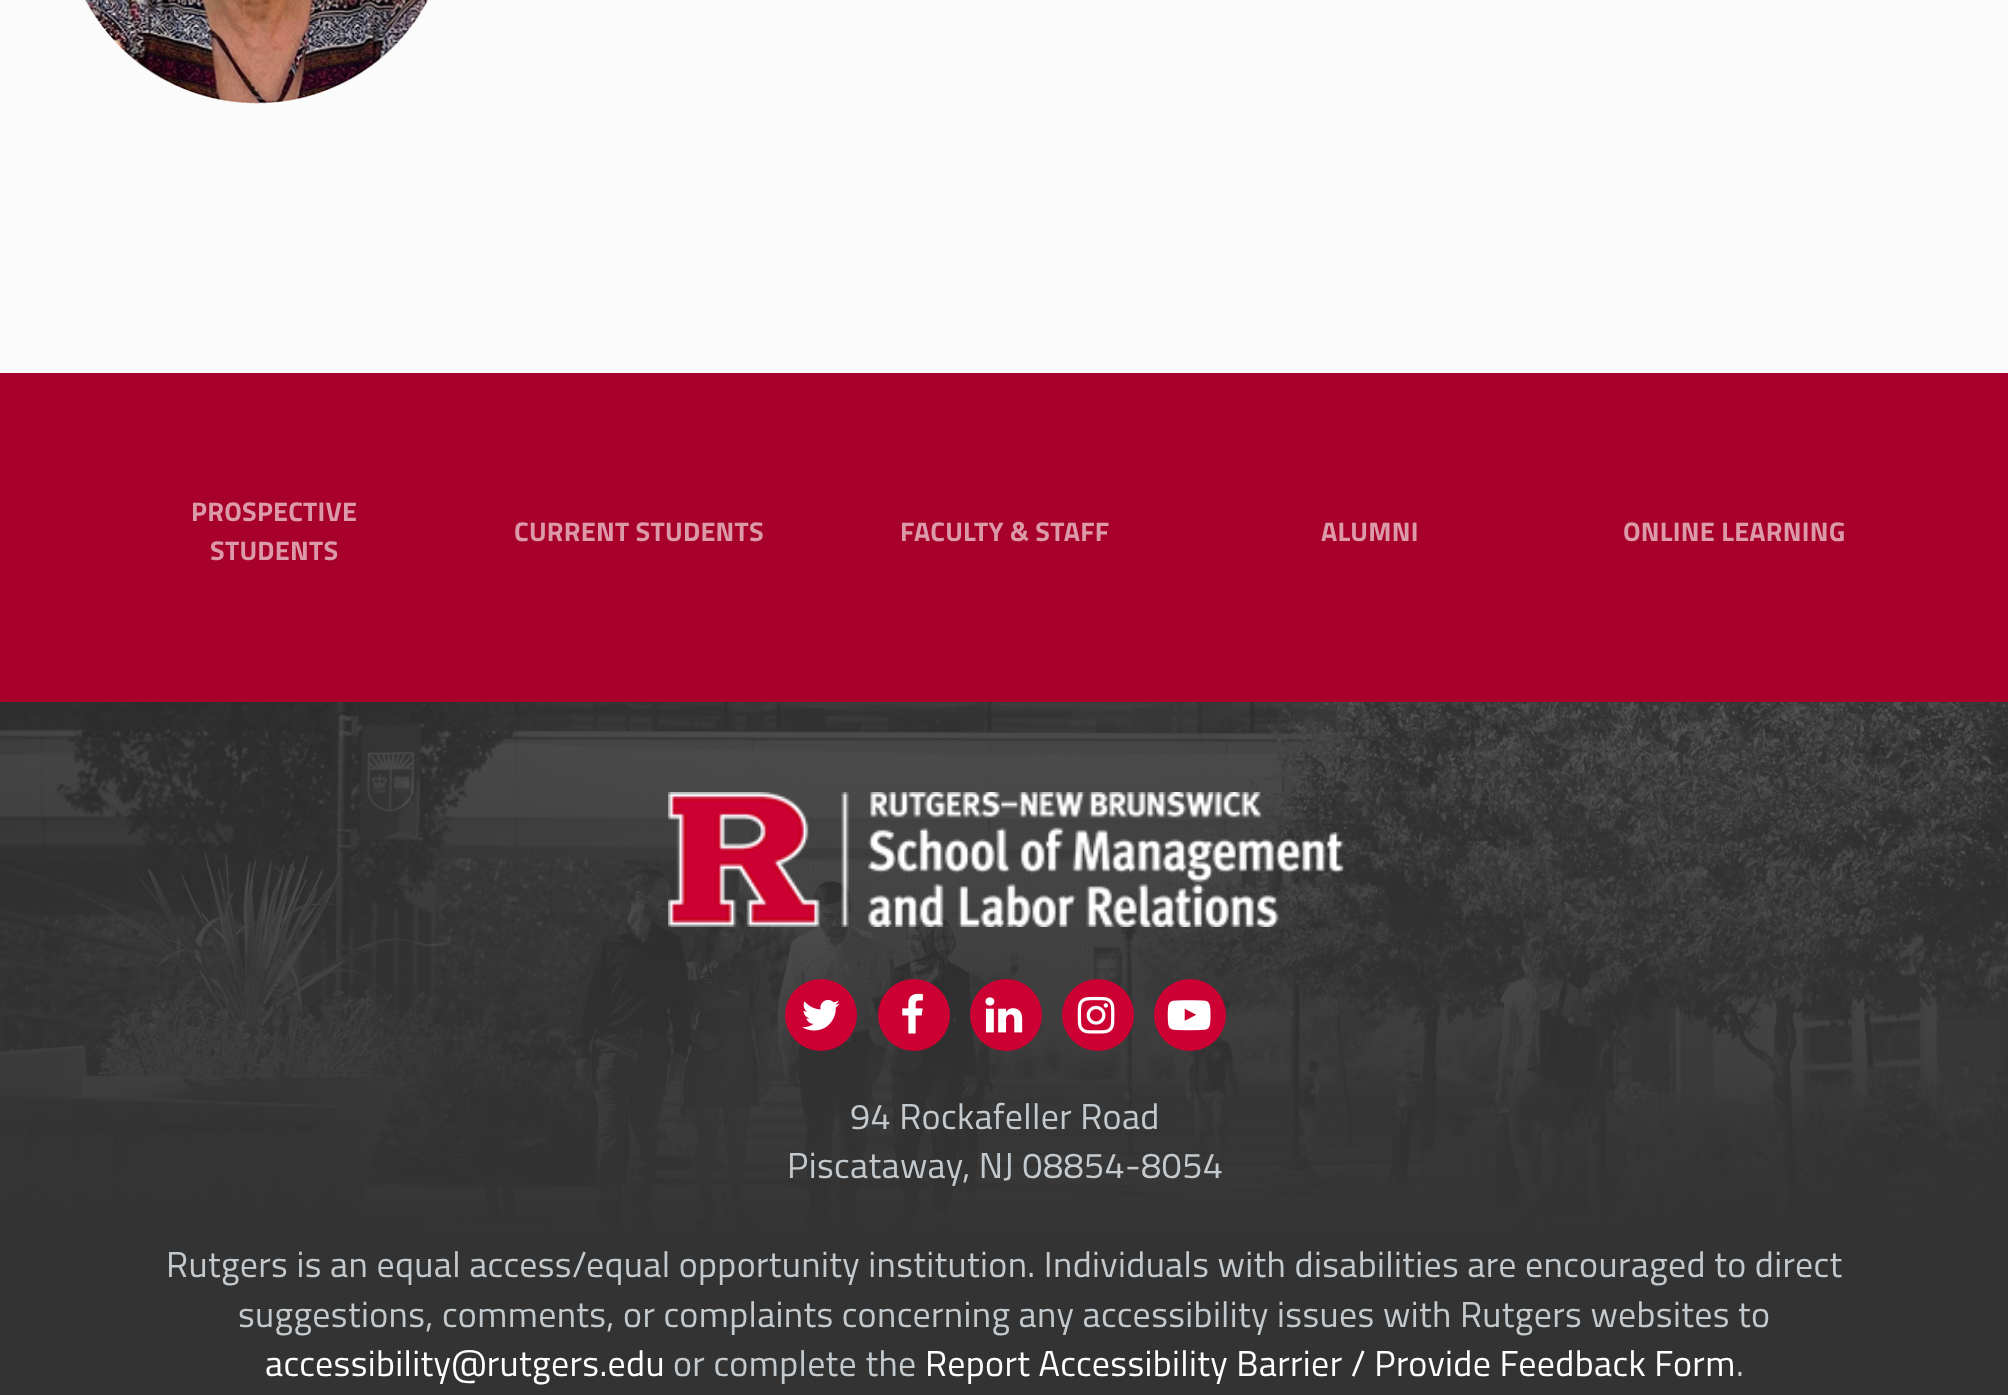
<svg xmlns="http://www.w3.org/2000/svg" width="2008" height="1395">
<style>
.a{font:bold 27px Titillium Web;letter-spacing:0.25px;fill:#dc99aa}
.b{font:36px Titillium Web;letter-spacing:0.36px;fill:#c3c9cd}
.c{font:36px Titillium Web;letter-spacing:0.36px;fill:#fff}
</style>
<defs>
<linearGradient id="g1" gradientUnits="userSpaceOnUse" x1="1005" y1="702" x2="1005" y2="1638"><stop offset="0" stop-color="#333" stop-opacity="0.8"/><stop offset="0.58" stop-color="#333"/></linearGradient>
</defs>
<rect width="100%" height="100%" fill="#fbfbfb"/>
<image href="1.png" x="85" y="0" width="343" height="104"/>
<path fill="#a7002b" d="M0 373h2008v329H0z"/>
<image href="2.png" x="0" y="702" width="2008" height="527"/>
<path fill="url(#g1)" d="M0 702h2008v693H0z"/>
<image href="3.png" x="668" y="792" width="676" height="135"/>
<circle fill="#c03" cx="821" cy="1015" r="36"/>
<image href="4.png" x="802" y="1000" width="38" height="31"/>
<circle fill="#c03" cx="914" cy="1015" r="36"/>
<image href="5.png" x="902" y="993" width="21" height="41"/>
<circle fill="#c03" cx="1006" cy="1015" r="36"/>
<image href="6.png" x="985" y="997" width="38" height="36"/>
<circle fill="#c03" cx="1098" cy="1015" r="36"/>
<image href="7.png" x="1077" y="996" width="38" height="38"/>
<circle fill="#c03" cx="1190" cy="1015" r="36"/>
<image href="8.png" x="1167" y="1000" width="44" height="31"/>
<text class="a" x="191" y="521">PROSPECTIVE</text>
<text class="a" x="210" y="560">STUDENTS</text>
<text class="a" x="514" y="541">CURRENT STUDENTS</text>
<text class="a" x="900" y="541">FACULTY &amp; STAFF</text>
<text class="a" x="1321" y="541">ALUMNI</text>
<text class="a" x="1623" y="541">ONLINE LEARNING</text>
<text class="b" x="850" y="1129">94 Rockafeller Road</text>
<text class="b" x="787" y="1178">Piscataway, NJ 08854-8054</text>
<text class="b" x="166" y="1277">Rutgers is an equal access/equal opportunity institution. Individuals with disabilities are encouraged to direct</text>
<text class="b" x="238" y="1327">suggestions, comments, or complaints concerning any accessibility issues with Rutgers websites to</text>
<text class="c" x="265" y="1376">accessibility@rutgers.edu</text>
<text class="b" x="673" y="1376">or complete the</text>
<text class="c" x="925" y="1376">Report Accessibility Barrier / Provide Feedback Form</text>
<text class="b" x="1736" y="1376">.</text>
</svg>
